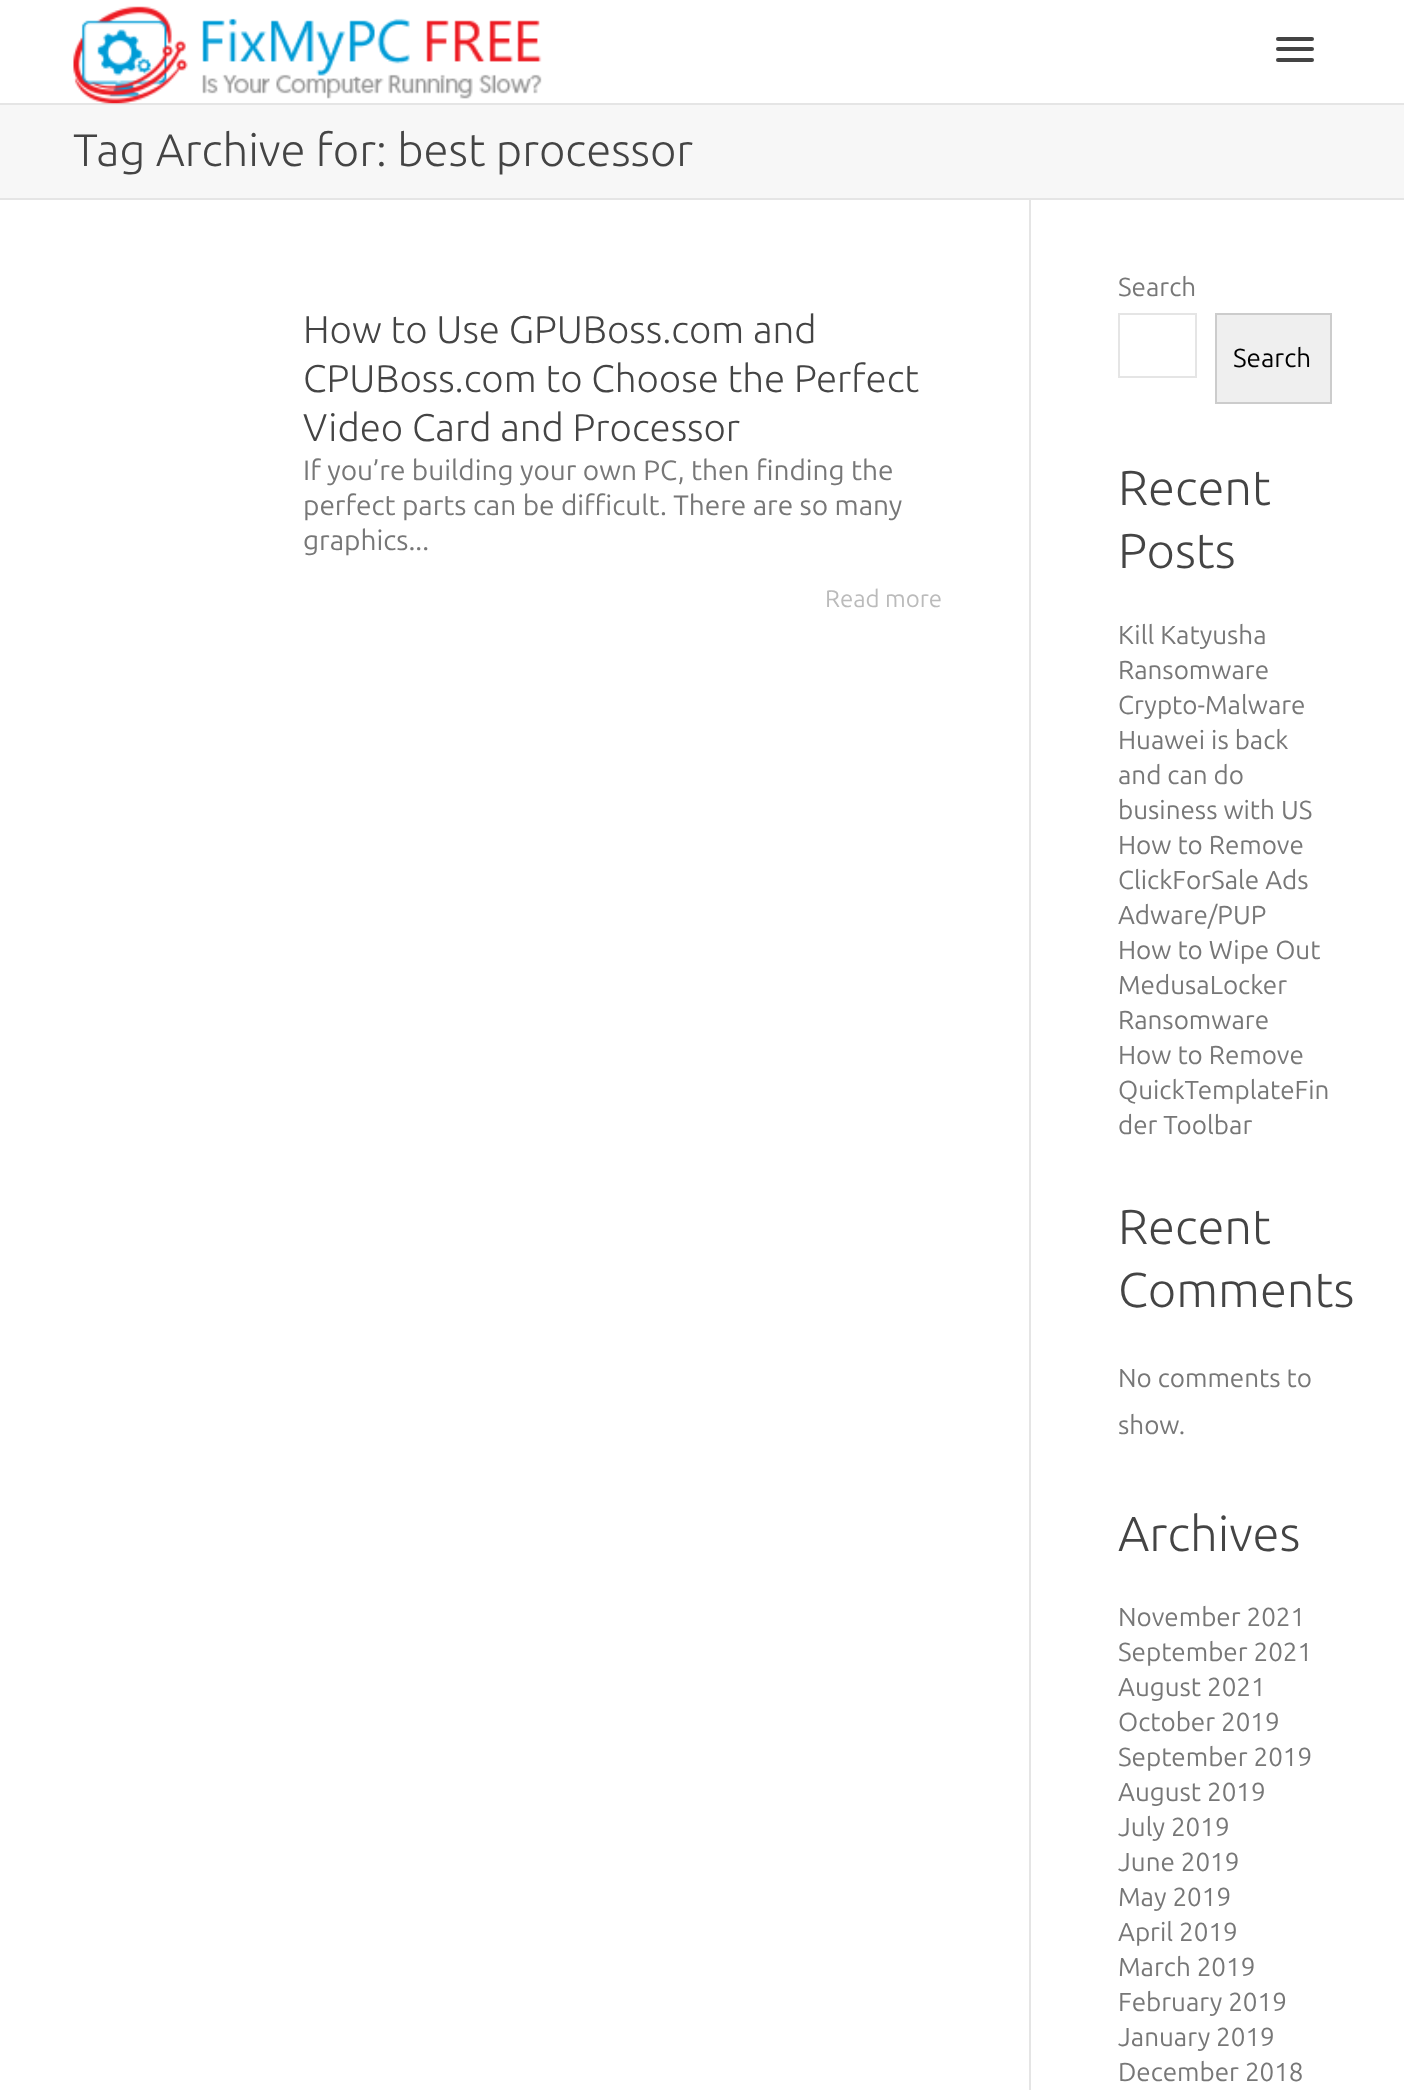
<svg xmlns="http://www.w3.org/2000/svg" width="1404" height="2090">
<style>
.a{font:300 45.5px Ubuntu;fill:#444}
.b{font:300 38.5px Ubuntu;fill:#444}
.c{font:28px Ubuntu;fill:#777}
.d{font:24px Ubuntu;fill:#bbb}
.e{font:26px Ubuntu;fill:#777}
.f{font:26px Ubuntu;fill:#000}
.g{font:300 49px Ubuntu;fill:#444}
</style>
<rect width="100%" height="100%" fill="#fff"/>
<path fill="#e5e5e5" d="M0 103h1404v2H0z"/>
<image href="1.png" x="73" y="6" width="469" height="98"/>
<rect fill="#444" x="1276" y="37" width="38" height="4" rx="2"/>
<rect fill="#444" x="1276" y="47" width="38" height="4" rx="2"/>
<rect fill="#444" x="1276" y="58" width="38" height="4" rx="2"/>
<path fill="#f7f7f7" d="M0 105h1404v93H0z"/>
<path fill="#e5e5e5" d="M0 198h1404v2H0z"/>
<path fill="#e5e5e5" d="M1029 200h2v1890H1029z"/>
<path fill="none" stroke="#e5e5e5" stroke-width="2" d="M1119 314h77v63H1119z"/>
<path fill="#efefef" stroke="#ccc" stroke-width="2" d="M1216 314h115v89H1216z"/>
<text class="a" x="73" y="166">Tag Archive for: best processor</text>
<text class="b" x="303" y="343">How to Use GPUBoss.com and</text>
<text class="b" x="303" y="392">CPUBoss.com to Choose the Perfect</text>
<text class="b" x="303" y="441">Video Card and Processor</text>
<text class="c" x="303" y="480">If you’re building your own PC, then finding the</text>
<text class="c" x="303" y="515">perfect parts can be difficult. There are so many</text>
<text class="c" x="303" y="550">graphics...</text>
<text class="d" x="825" y="607">Read more</text>
<text class="e" x="1118" y="296">Search</text>
<text class="f" x="1233" y="367">Search</text>
<text class="g" x="1118" y="505">Recent</text>
<text class="g" x="1118" y="568">Posts</text>
<text class="e" x="1118" y="644">Kill Katyusha</text>
<text class="e" x="1118" y="679">Ransomware</text>
<text class="e" x="1118" y="714">Crypto-Malware</text>
<text class="e" x="1118" y="749">Huawei is back</text>
<text class="e" x="1118" y="784">and can do</text>
<text class="e" x="1118" y="819">business with US</text>
<text class="e" x="1118" y="854">How to Remove</text>
<text class="e" x="1118" y="889">ClickForSale Ads</text>
<text class="e" x="1118" y="924">Adware/PUP</text>
<text class="e" x="1118" y="959">How to Wipe Out</text>
<text class="e" x="1118" y="994">MedusaLocker</text>
<text class="e" x="1118" y="1029">Ransomware</text>
<text class="e" x="1118" y="1064">How to Remove</text>
<text class="e" x="1118" y="1099">QuickTemplateFin</text>
<text class="e" x="1118" y="1134">der Toolbar</text>
<text class="g" x="1118" y="1244">Recent</text>
<text class="g" x="1118" y="1307">Comments</text>
<text class="e" x="1118" y="1387">No comments to</text>
<text class="e" x="1118" y="1434">show.</text>
<text class="g" x="1118" y="1551">Archives</text>
<text class="e" x="1118" y="1626">November 2021</text>
<text class="e" x="1118" y="1661">September 2021</text>
<text class="e" x="1118" y="1696">August 2021</text>
<text class="e" x="1118" y="1731">October 2019</text>
<text class="e" x="1118" y="1766">September 2019</text>
<text class="e" x="1118" y="1801">August 2019</text>
<text class="e" x="1118" y="1836">July 2019</text>
<text class="e" x="1118" y="1871">June 2019</text>
<text class="e" x="1118" y="1906">May 2019</text>
<text class="e" x="1118" y="1941">April 2019</text>
<text class="e" x="1118" y="1976">March 2019</text>
<text class="e" x="1118" y="2011">February 2019</text>
<text class="e" x="1118" y="2046">January 2019</text>
<text class="e" x="1118" y="2081">December 2018</text>
</svg>
